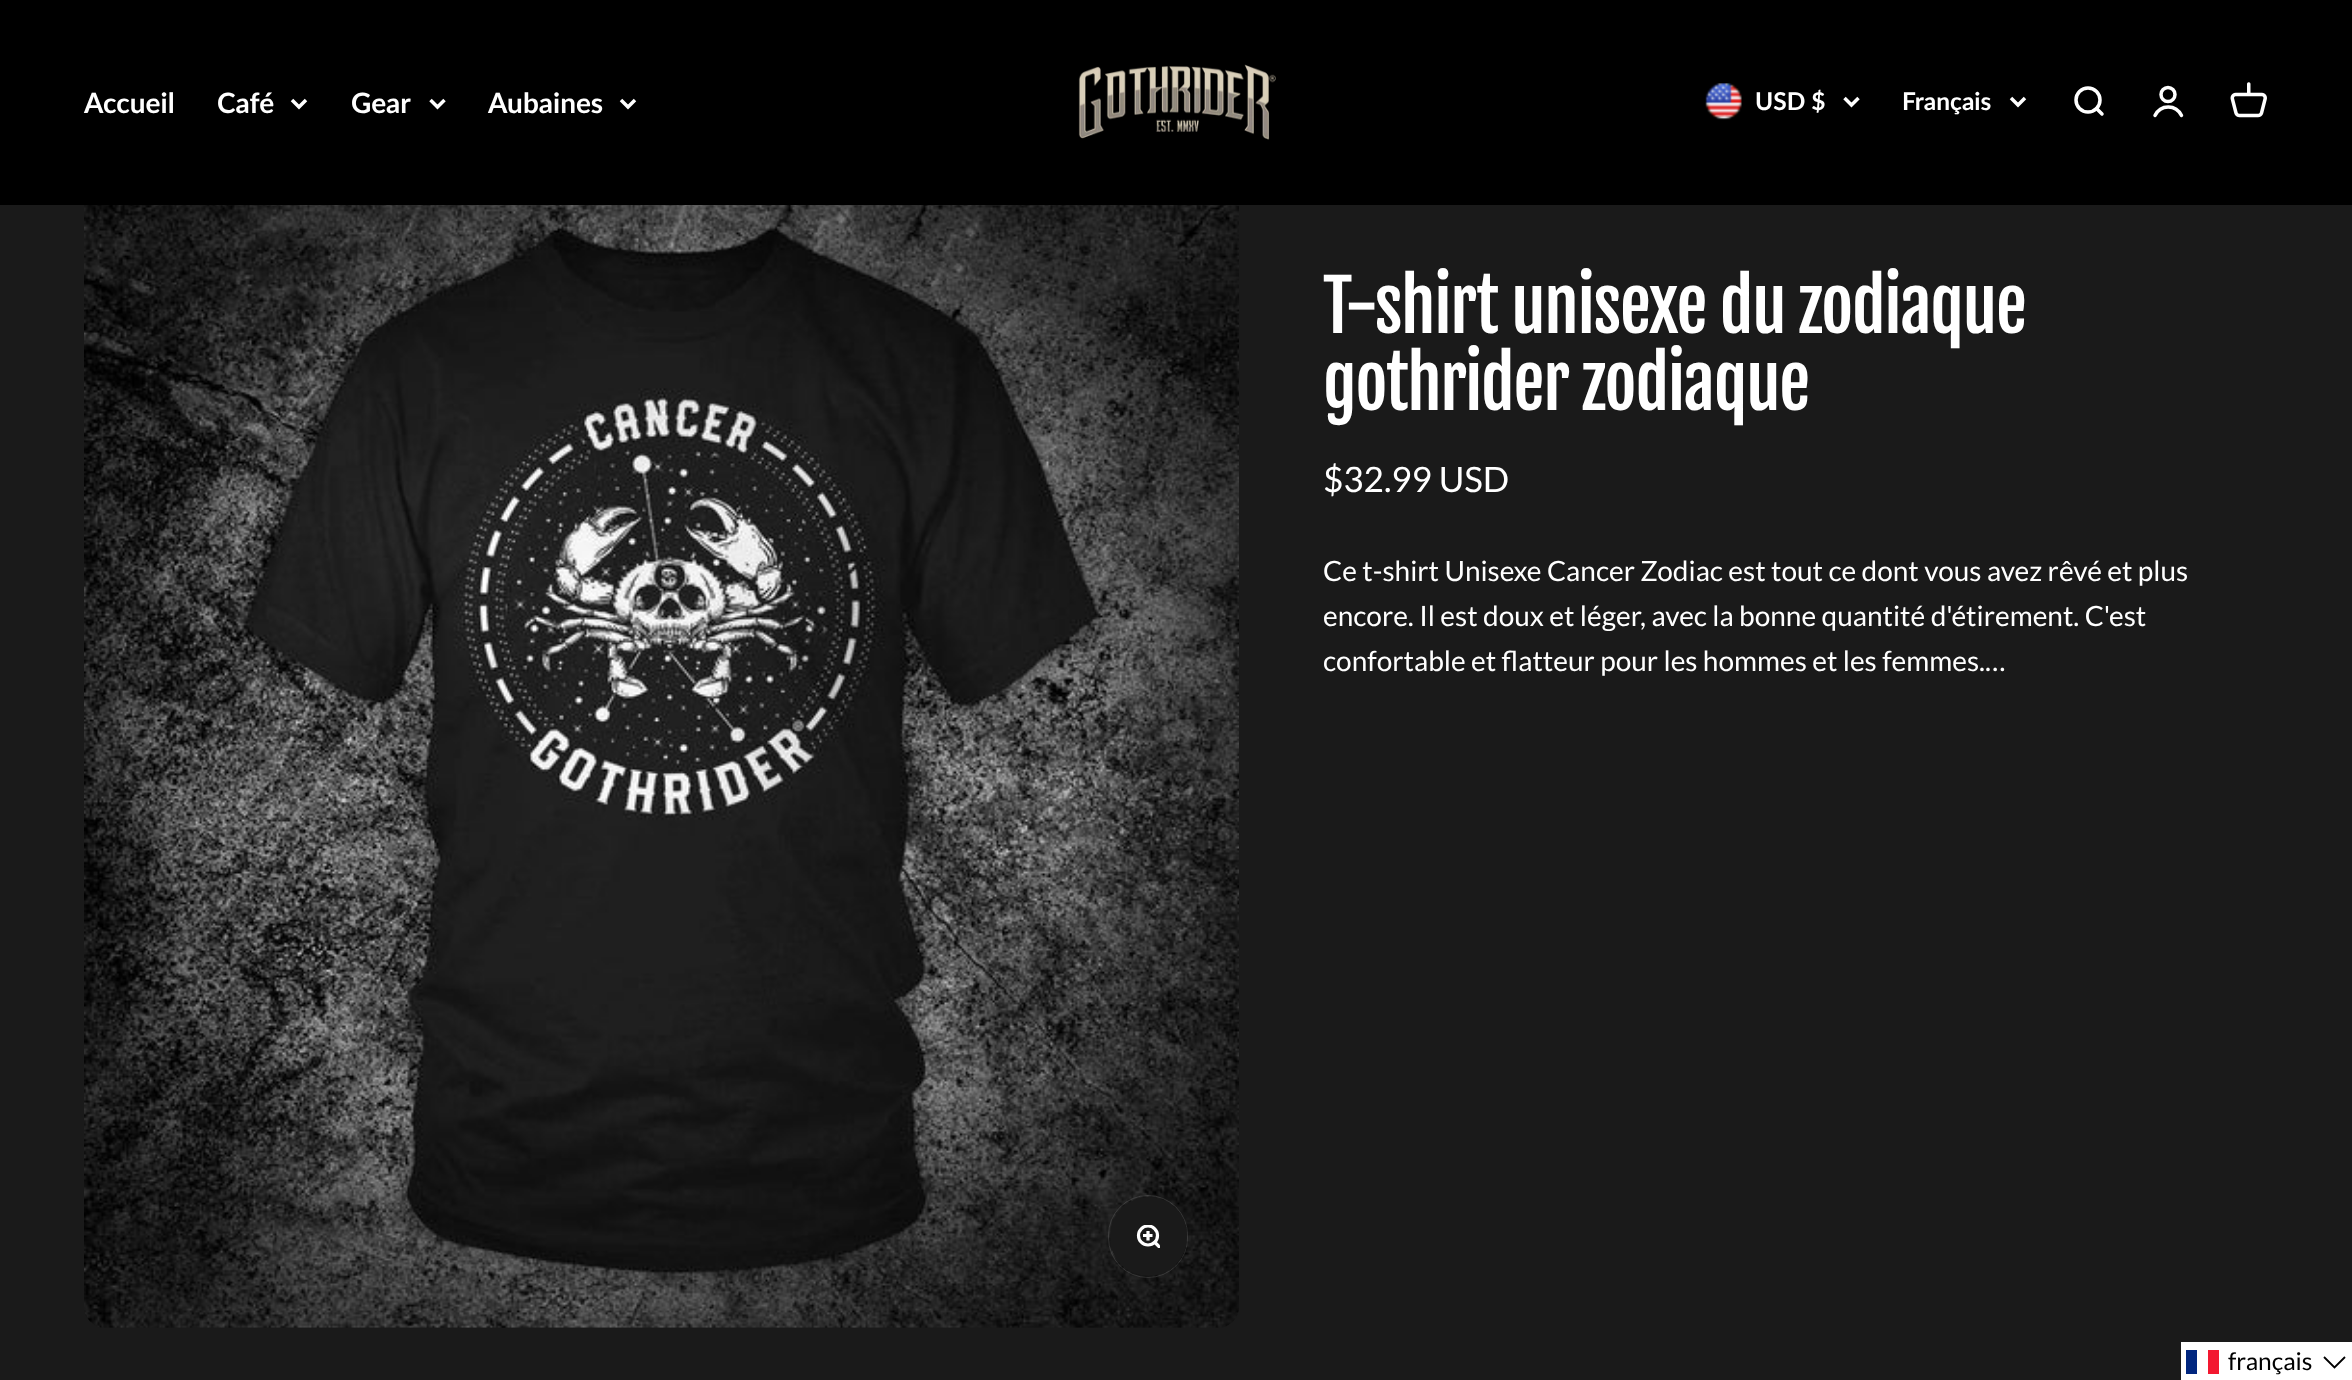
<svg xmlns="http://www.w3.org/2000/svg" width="2352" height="1380">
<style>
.a{font:bold 28px Lato;fill:#fff}
.b{font:bold 24.5px Lato;fill:#fff}
.c{font:70px Fjalla One;letter-spacing:-1.4px;fill:#fff}
.d{font:35px Lato;fill:#fff}
.e{font:28px Lato;fill:#fff}
.f{font:24.5px Lato;fill:#000}
</style>
<defs>
<clipPath id="clip1"><path d="M1136 1225h24v23H1136z"/></clipPath>
</defs>
<rect width="100%" height="100%" fill="#1a1a1a"/>
<path fill="#000" d="M0 0h2352v205H0z"/>
<path fill="none" stroke="#fff" stroke-width="3.5" d="M292 100l7 7l7-7"/>
<path fill="none" stroke="#fff" stroke-width="3.5" d="M430.5 100l7 7l7-7"/>
<path fill="none" stroke="#fff" stroke-width="3.5" d="M621 100l7 7l7-7"/>
<image href="1.png" x="1078" y="64" width="198" height="76"/>
<image href="2.png" x="1705" y="83" width="37" height="37"/>
<path fill="none" stroke="#fff" stroke-width="3.5" d="M1844.5 98l7 7l7-7"/>
<path fill="none" stroke="#fff" stroke-width="3.5" d="M2011 98l7 7l7-7"/>
<circle fill="none" stroke="#fff" stroke-width="3.5" cx="2088" cy="100" r="12"/>
<path fill="none" stroke="#fff" stroke-width="3.5" stroke-linecap="round" stroke-linejoin="round" d="M2096.5 108.5l5.5 5.5"/>
<circle fill="none" stroke="#fff" stroke-width="3.5" cx="2168" cy="94.5" r="7"/>
<path fill="none" stroke="#fff" stroke-width="3.5" stroke-linecap="round" d="M2155 115.5c5.5-11.5 21-11.5 26.5 0"/>
<image href="3.png" x="2230" y="82" width="37" height="36"/>
<image href="4.png" x="84" y="205" width="1155" height="1123"/>
<rect fill="none" stroke="#ffffff1f" x="1108.5" y="1195.5" width="79" height="82" rx="39.5"/>
<rect fill="#1a1a1a" x="1110" y="1197" width="77" height="79" rx="38.5"/>
<g clip-path="url(#clip1)">
<circle fill="none" stroke="#fff" stroke-width="3.2" cx="1148" cy="1235.5" r="9.5"/>
<path fill="none" stroke="#fff" stroke-width="3.2" stroke-linecap="round" stroke-linejoin="round" d="M1155 1242.5l4 4"/>
</g>
<path fill="none" stroke="#fff" stroke-width="3.2" d="M1148 1231v9.5m-5-5h9.5"/>
<path fill="#fff" d="M2181 1342h171v38H2181z"/>
<path fill="#00267f" d="M2186 1350h11v24H2186z"/>
<path fill="#f31830" d="M2208 1350h11v24H2208z"/>
<path fill="none" stroke="#000" stroke-width="1.8" d="M2324 1357l10.5 10.5l10.5-10.5"/>
<text class="a" x="84" y="113">Accueil</text>
<text class="a" x="217" y="113">Café</text>
<text class="a" x="351" y="113">Gear</text>
<text class="a" x="488" y="113">Aubaines</text>
<text class="b" x="1755" y="110">USD $</text>
<text class="b" x="1902" y="110">Français</text>
<text class="c" x="1323" y="333">T-shirt unisexe du zodiaque</text>
<text class="c" x="1323" y="410">gothrider zodiaque</text>
<text class="d" x="1323" y="492">$32.99 USD</text>
<text class="e" x="1323" y="581">Ce t-shirt Unisexe Cancer Zodiac est tout ce dont vous avez rêvé et plus</text>
<text class="e" x="1323" y="626">encore. Il est doux et léger, avec la bonne quantité d'étirement. C'est</text>
<text class="e" x="1323" y="671">confortable et flatteur pour les hommes et les femmes.…</text>
<text class="f" x="2228" y="1370">français</text>
</svg>
